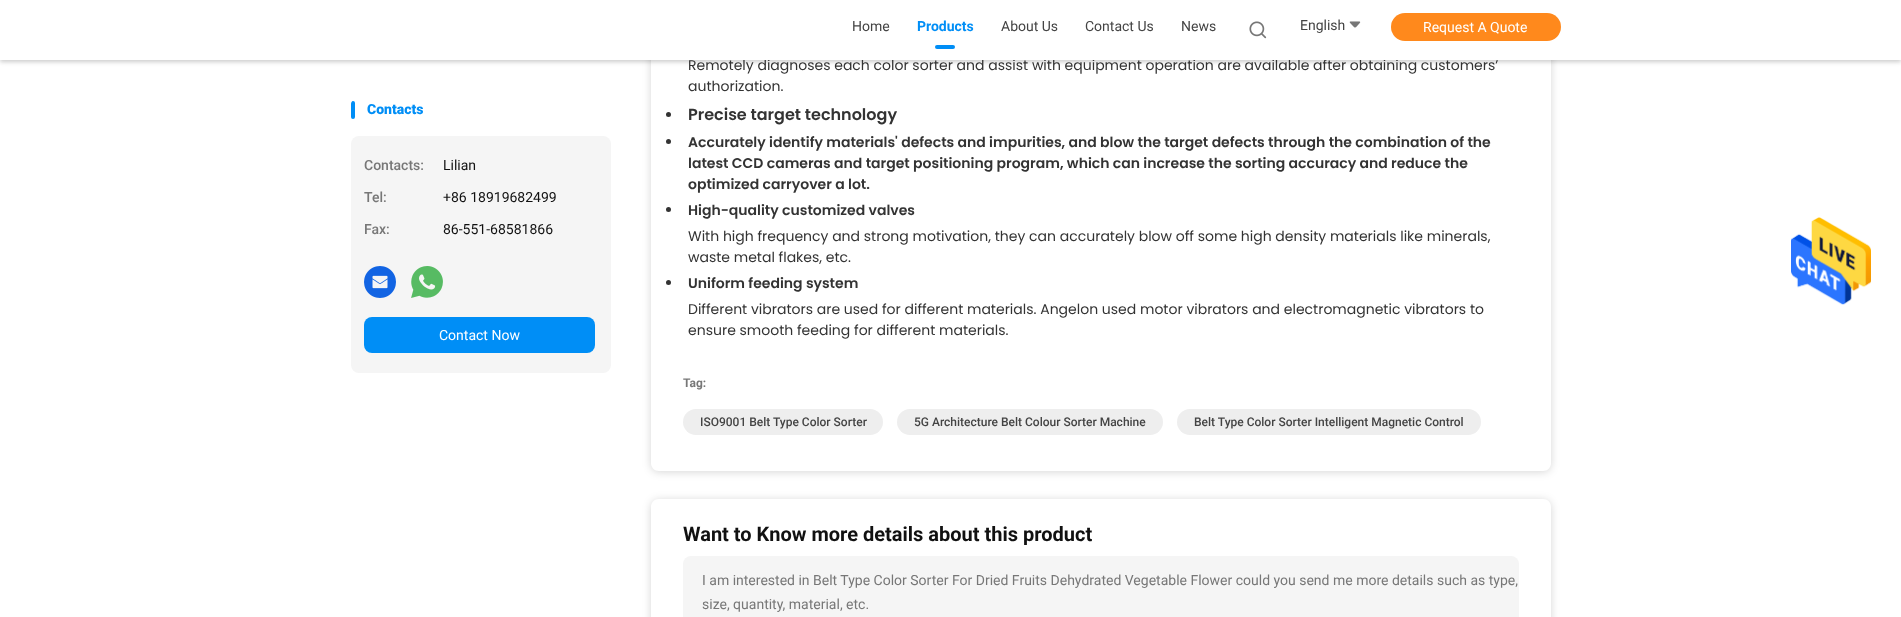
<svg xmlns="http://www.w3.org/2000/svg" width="1901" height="617">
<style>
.a{font:900 14px Roboto;fill:#008ef6}
.b{font:500 14px Roboto;fill:#777}
.c{font:14px Roboto;fill:#111}
.d{font:14px Roboto;fill:#fff}
.e{font:14px Poppins;fill:#333}
.f{font:14px Roboto;fill:#444}
.g{font:bold 14px Roboto;fill:#008ef6}
.h{font:600 16px Poppins;fill:#333}
.i{font:600 14px Poppins;fill:#333}
.j{font:bold 12px Roboto;fill:#777}
.k{font:500 12px Roboto;fill:#444}
.l{font:bold 20px Roboto;fill:#111}
.m{font:14px Roboto;fill:#777}
</style>
<defs>
<clipPath id="clip1"><rect x="351" y="100" width="260" height="273" rx="4"/></clipPath>
<clipPath id="clip2"><path d="M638 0h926v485h-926zm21-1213h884c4.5 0 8 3.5 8 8v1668c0 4.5-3.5 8-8 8h-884c-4.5 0-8-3.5-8-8v-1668c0-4.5 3.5-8 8-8z" clip-rule="evenodd"/></clipPath>
<clipPath id="clip3"><path d="M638 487h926v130h-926zm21 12h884c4.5 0 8 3.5 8 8v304c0 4.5-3.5 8-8 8h-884c-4.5 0-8-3.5-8-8v-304c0-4.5 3.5-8 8-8z" clip-rule="evenodd"/></clipPath>
</defs>
<rect width="100%" height="100%" fill="#fff"/>
<path fill="#00000033" filter="blur(2px)" d="M0 2h1901v60H0z"/>
<g clip-path="url(#clip1)">
<rect fill="#008ef6" x="351" y="101" width="4" height="18" rx="2"/>
</g>
<rect fill="#f5f5f5" x="351" y="136" width="260" height="237" rx="8"/>
<image href="3.png" x="364" y="266" width="32" height="32"/>
<image href="4.png" x="411" y="266" width="32" height="32"/>
<rect fill="#008ef6" x="364" y="317" width="231" height="36" rx="8"/>
<g clip-path="url(#clip2)">
<rect fill="#00000029" filter="blur(4px)" x="651" y="-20" width="900" height="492" rx="8"/>
</g>
<circle fill="#333" cx="668.5" cy="114.5" r="2.5"/>
<circle fill="#333" cx="668.5" cy="141.5" r="2.5"/>
<circle fill="#333" cx="668.5" cy="209.5" r="2.5"/>
<circle fill="#333" cx="668.5" cy="282.5" r="2.5"/>
<rect fill="#eee" x="683" y="409" width="200" height="26" rx="13"/>
<rect fill="#eee" x="897" y="409" width="266" height="26" rx="13"/>
<rect fill="#eee" x="1177" y="409" width="304" height="26" rx="13"/>
<g clip-path="url(#clip3)">
<rect fill="#00000029" filter="blur(4px)" x="651" y="500" width="900" height="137" rx="8"/>
</g>
<rect fill="#f5f5f5" x="683" y="556" width="836" height="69" rx="8"/>
<image href="5.png" x="1791" y="217" width="80" height="88"/>
<text class="a" x="367" y="114">Contacts</text>
<text class="b" x="364" y="170">Contacts:</text>
<text class="c" x="443" y="170">Lilian</text>
<text class="b" x="364" y="202">Tel:</text>
<text class="c" x="443" y="202">+86 18919682499</text>
<text class="b" x="364" y="234">Fax:</text>
<text class="c" x="443" y="234">86-551-68581866</text>
<text class="d" x="439" y="340">Contact Now</text>
<text class="e" x="688" y="70">Remotely diagnoses each color sorter and assist with equipment operation are available after obtaining customers’</text>
<path fill="#fff" d="M0 0h1901v60H0z"/>
<image href="2.png" x="1349" y="21" width="12" height="7"/>
<text class="f" x="1300" y="30">English</text>
<text class="f" x="1181" y="31">News</text>
<text class="f" x="1085" y="31">Contact Us</text>
<text class="f" x="1001" y="31">About Us</text>
<rect fill="#008ef6" x="935" y="45" width="20" height="4" rx="2"/>
<text class="g" x="917" y="31">Products</text>
<text class="f" x="852" y="31">Home</text>
<rect fill="#ff891c" x="1391" y="13" width="170" height="28" rx="14"/>
<text class="d" x="1423" y="32">Request A Quote</text>
<image href="1.png" x="1249" y="21" width="18" height="18"/>
<text class="e" x="688" y="91">authorization.</text>
<text class="h" x="688" y="120">Precise target technology</text>
<text class="i" x="688" y="147">Accurately identify materials' defects and impurities, and blow the target defects through the combination of the</text>
<text class="i" x="688" y="168">latest CCD cameras and target positioning program, which can increase the sorting accuracy and reduce the</text>
<text class="i" x="688" y="189">optimized carryover a lot.</text>
<text class="i" x="688" y="215">High-quality customized valves</text>
<text class="e" x="688" y="241">With high frequency and strong motivation, they can accurately blow off some high density materials like minerals,</text>
<text class="e" x="688" y="262">waste metal flakes, etc.</text>
<text class="i" x="688" y="288">Uniform feeding system</text>
<text class="e" x="688" y="314">Different vibrators are used for different materials. Angelon used motor vibrators and electromagnetic vibrators to</text>
<text class="e" x="688" y="335">ensure smooth feeding for different materials.</text>
<text class="j" x="683" y="387">Tag:</text>
<text class="k" x="700" y="426">ISO9001 Belt Type Color Sorter</text>
<text class="k" x="914" y="426">5G Architecture Belt Colour Sorter Machine</text>
<text class="k" x="1194" y="426">Belt Type Color Sorter Intelligent Magnetic Control</text>
<text class="l" x="683" y="541">Want to Know more details about this product</text>
<text class="m" x="702" y="585">I am interested in Belt Type Color Sorter For Dried Fruits Dehydrated Vegetable Flower could you send me more details such as type,</text>
<text class="m" x="702" y="609">size, quantity, material, etc.</text>
</svg>
